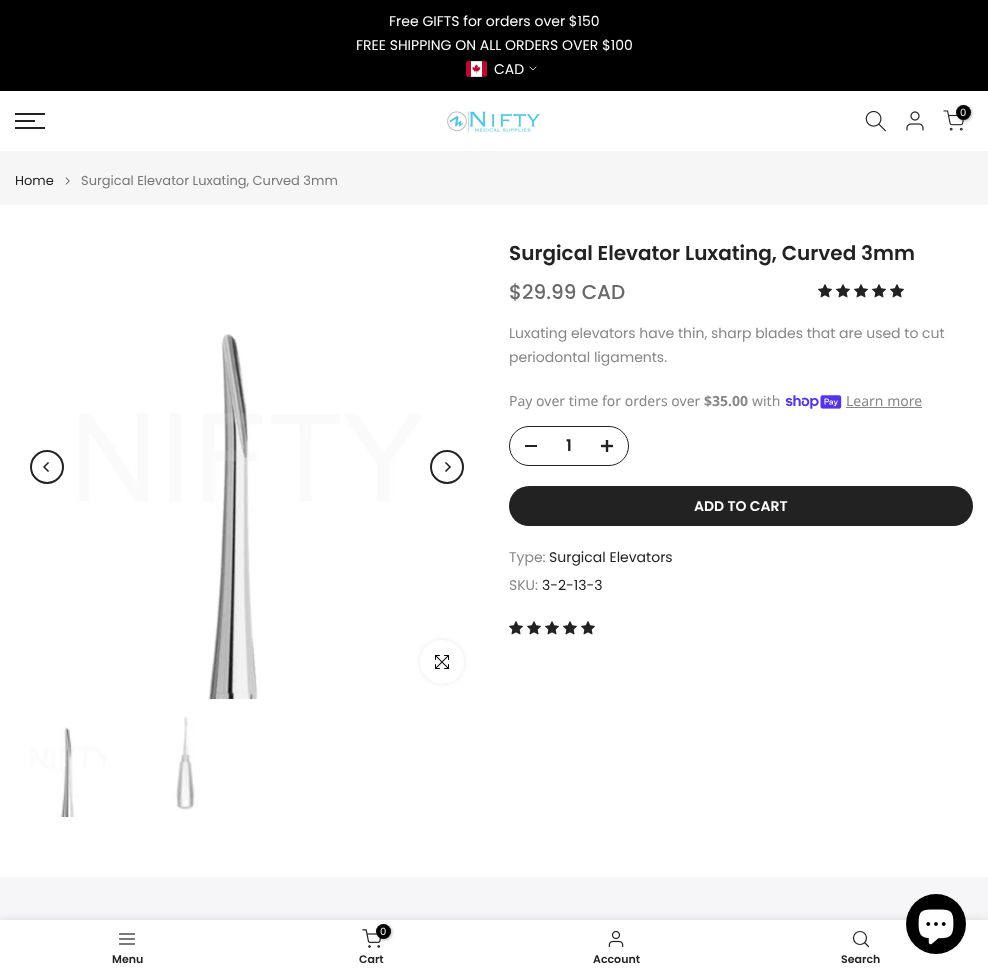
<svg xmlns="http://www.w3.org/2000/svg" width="988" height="975">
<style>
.a{font:14px Poppins;fill:#fff}
.b{font:10px Poppins;fill:#fff}
.c{font:13px Poppins;fill:#222}
.d{font:13px Poppins;fill:#777}
.e{font:600 20px Poppins;fill:#222}
.f{font:500 20px Poppins;fill:#696969}
.g{font:14px Poppins;fill:#878787}
.h{font:14px Noto Sans;fill:#878787}
.i{font:bold 14px Noto Sans;fill:#878787}
.j{font:600 16px Poppins;fill:#222}
.k{font:600 14px Poppins;fill:#fff}
.l{font:14px Poppins;fill:#222}
.m{font:600 11px Poppins;fill:#222}
</style>
<rect width="100%" height="100%" fill="#fff"/>
<path fill="#000" d="M0 0h988v91H0z"/>
<image href="1.png" x="466" y="61" width="21" height="16"/>
<path fill="none" stroke="#fff" stroke-width="0.8" stroke-linecap="square" d="M536 67l-3 3l-3-3"/>
<path fill="#222" d="M15 113h30v2H15z"/>
<path fill="#222" d="M15 120h20v2H15z"/>
<path fill="#222" d="M15 127h30v2H15z"/>
<image href="2.png" x="447" y="111" width="93" height="21"/>
<image href="3.png" x="865" y="110" width="21" height="22"/>
<image href="4.png" x="906" y="111" width="18" height="20"/>
<image href="5.png" x="943" y="110" width="21" height="21"/>
<rect fill="#0000004d" filter="blur(1.5px)" x="957" y="106" width="15" height="15" rx="7.5"/>
<circle fill="#000" cx="963.5" cy="112.5" r="7.5"/>
<path fill="#f6f6f6" d="M0 151h988v54H0z"/>
<image href="6.png" x="65" y="177" width="5" height="8"/>
<circle fill="none" stroke="#222" stroke-width="2" cx="47" cy="467" r="16"/>
<image href="7.png" x="43" y="462" width="6" height="10"/>
<image href="8.png" x="79" y="334" width="342" height="365"/>
<circle fill="none" stroke="#222" stroke-width="2" cx="447" cy="467" r="16"/>
<image href="9.png" x="445" y="462" width="6" height="10"/>
<rect fill="#00000017" filter="blur(2.5px)" x="420" y="640" width="44" height="44" rx="22"/>
<circle fill="#fff" cx="442" cy="662" r="22"/>
<image href="10.png" x="435" y="655" width="14" height="14"/>
<image href="11.png" x="31" y="727" width="76" height="90"/>
<image href="12.png" x="175" y="716" width="20" height="94"/>
<image href="13.png" x="818" y="284" width="14" height="14"/>
<image href="13.png" x="836" y="284" width="14" height="14"/>
<image href="13.png" x="854" y="284" width="14" height="14"/>
<image href="13.png" x="872" y="284" width="14" height="14"/>
<image href="13.png" x="890" y="284" width="14" height="14"/>
<image href="14.png" x="785" y="395" width="57" height="14"/>
<path fill="#878787" d="M846 407h76v1H846z"/>
<rect fill="none" stroke="#222" x="509.5" y="426.5" width="119" height="39" rx="19.5"/>
<path fill="#222" d="M525 445h12v2H525z"/>
<image href="15.png" x="601" y="440" width="12" height="12"/>
<rect fill="#222" x="509" y="486" width="464" height="40" rx="20"/>
<image href="13.png" x="509" y="621" width="14" height="14"/>
<image href="13.png" x="527" y="621" width="14" height="14"/>
<image href="13.png" x="545" y="621" width="14" height="14"/>
<image href="13.png" x="563" y="621" width="14" height="14"/>
<image href="13.png" x="581" y="621" width="14" height="14"/>
<path fill="#f6f6f8" d="M0 877h988v43H0z"/>
<path fill="#0000001f" filter="blur(4.5px)" d="M0 920h988v55H0z"/>
<path fill="#fff" d="M0 920h988v55H0z"/>
<image href="16.png" x="119" y="933" width="16" height="12"/>
<image href="17.png" x="362" y="929" width="19" height="19"/>
<rect fill="#0000004d" filter="blur(1.5px)" x="377" y="925" width="15" height="15" rx="7.5"/>
<circle fill="#000" cx="383.5" cy="931.5" r="7.5"/>
<image href="18.png" x="608" y="930" width="16" height="18"/>
<circle fill="none" stroke="#222" stroke-width="1.2" cx="860" cy="938" r="6.5"/>
<path fill="none" stroke="#222" stroke-width="1.2" stroke-linecap="round" stroke-linejoin="round" d="M868.5 946.5l-3.5-3.5"/>
<circle fill="#000" cx="936" cy="924" r="30"/>
<image href="19.png" x="918" y="909" width="36" height="36"/>
<text class="a" x="389" y="26">Free GIFTS for orders over $150</text>
<text class="a" x="356" y="50">FREE SHIPPING ON ALL ORDERS OVER $100</text>
<text class="a" x="494" y="74">CAD</text>
<text class="b" x="960" y="116">0</text>
<text class="c" x="15" y="185">Home</text>
<text class="d" x="81" y="185">Surgical Elevator Luxating, Curved 3mm</text>
<text class="e" x="509" y="260">Surgical Elevator Luxating, Curved 3mm</text>
<text class="f" x="509" y="299">$29.99 CAD</text>
<text class="g" x="509" y="338">Luxating elevators have thin, sharp blades that are used to cut</text>
<text class="g" x="509" y="362">periodontal ligaments.</text>
<text class="h" x="509" y="406">Pay over time for orders over</text>
<text class="i" x="704" y="406">$35.00</text>
<text class="h" x="752" y="406">with</text>
<text class="h" x="846" y="406">Learn more</text>
<text class="j" x="566" y="451">1</text>
<text class="k" x="694" y="511">ADD TO CART</text>
<text class="g" x="509" y="562">Type:</text>
<text class="l" x="549" y="562">Surgical Elevators</text>
<text class="g" x="509" y="590">SKU:</text>
<text class="l" x="542" y="590">3-2-13-3</text>
<text class="m" x="112" y="963">Menu</text>
<text class="b" x="380" y="935">0</text>
<text class="m" x="359" y="963">Cart</text>
<text class="m" x="593" y="963">Account</text>
<text class="m" x="841" y="963">Search</text>
</svg>
